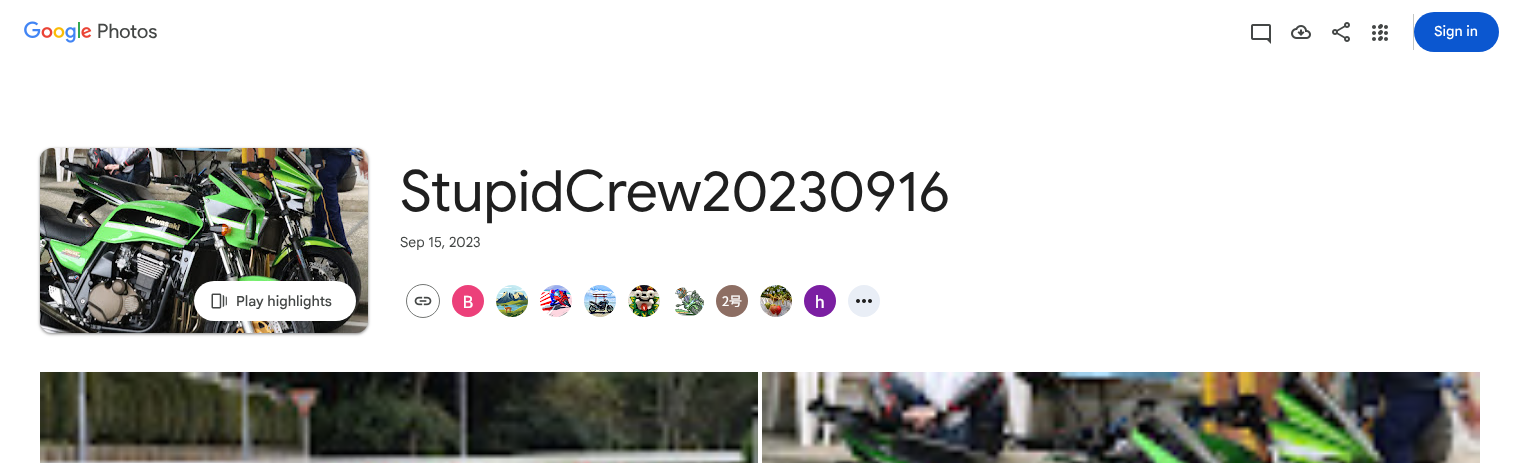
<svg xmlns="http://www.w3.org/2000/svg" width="1535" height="463">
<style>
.a{font:20px Product Sans;fill:#444746}
.b{font:57px Google Sans;fill:#1f1f1f}
.c{font:14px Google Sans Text;fill:#444746}
.d{font:500 14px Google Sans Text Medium;fill:#444746}
.e{font:500 14px Google Sans Text Medium;fill:#fff}
</style>
<rect width="100%" height="100%" fill="#fff"/>
<image href="1.png" x="24" y="21" width="68" height="22"/>
<image href="2.png" x="1251" y="24" width="20" height="20"/>
<image href="3.png" x="1291" y="25" width="20" height="14"/>
<image href="4.png" x="1332" y="22" width="18" height="20"/>
<image href="5.png" x="1379" y="24" width="4" height="16"/>
<path fill="#c4c7c5" d="M1413 14h1v36H1413z"/>
<circle fill="none" stroke="#747775" cx="423" cy="301" r="16.5"/>
<image href="6.png" x="414" y="296" width="18" height="10"/>
<image href="7.png" x="452" y="285" width="32" height="32"/>
<image href="8.png" x="496" y="285" width="32" height="32"/>
<image href="9.png" x="540" y="285" width="32" height="32"/>
<image href="10.png" x="584" y="285" width="32" height="32"/>
<image href="11.png" x="628" y="285" width="32" height="32"/>
<image href="12.png" x="675" y="287" width="29" height="29"/>
<image href="13.png" x="716" y="285" width="32" height="32"/>
<image href="14.png" x="760" y="285" width="32" height="32"/>
<image href="15.png" x="804" y="285" width="32" height="32"/>
<circle fill="#e9eef6" cx="864" cy="301" r="16"/>
<image href="16.png" x="856" y="299" width="16" height="4"/>
<rect fill="#00000026" filter="blur(1.5px)" x="39" y="148" width="330" height="187" rx="13"/>
<rect fill="#0000004d" filter="blur(1px)" x="40" y="149" width="328" height="185" rx="12"/>
<image href="17.png" x="40" y="148" width="328" height="185"/>
<rect fill="#fff" x="194" y="281" width="162" height="40" rx="20"/>
<image href="18.png" x="211" y="293" width="16" height="16"/>
<image href="19.png" x="40" y="372" width="718" height="91"/>
<image href="20.png" x="762" y="372" width="718" height="91"/>
<image href="21.png" x="1372" y="25" width="16" height="16"/>
<rect fill="#0b57d0" x="1414" y="12" width="85" height="40" rx="20"/>
<text class="a" x="97" y="38">Photos</text>
<text class="b" x="400" y="211">StupidCrew20230916</text>
<text class="c" x="400" y="247">Sep 15, 2023</text>
<text class="d" x="236" y="306">Play highlights</text>
<text class="e" x="1434" y="36">Sign in</text>
</svg>
